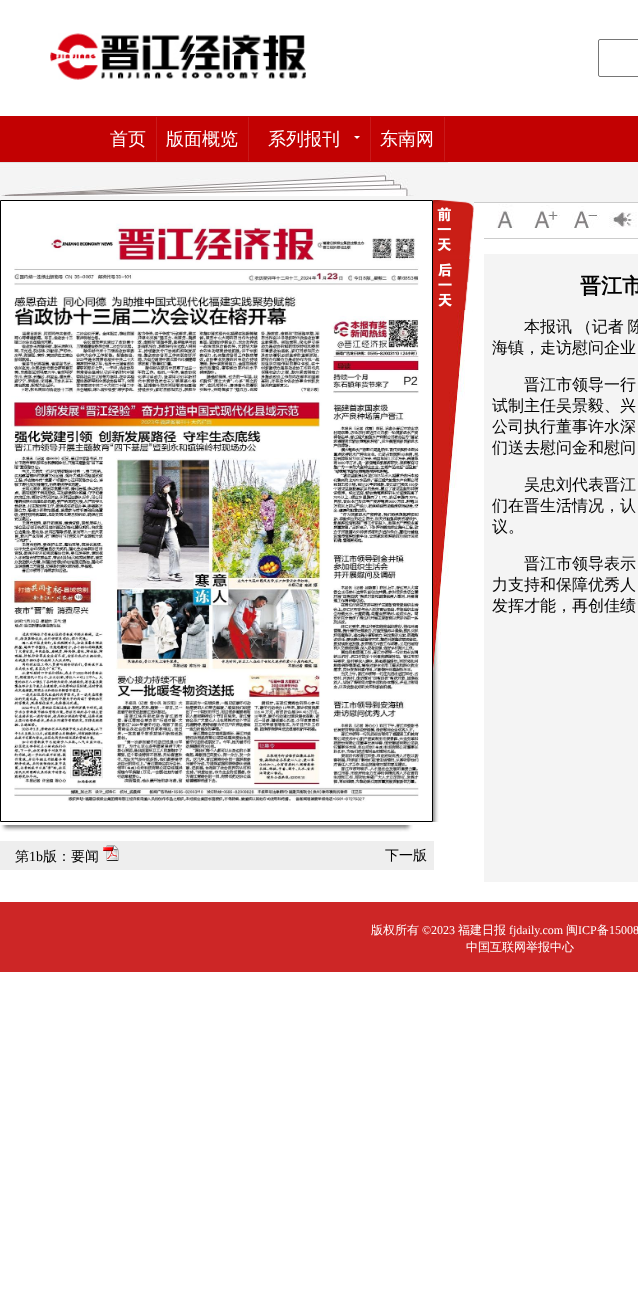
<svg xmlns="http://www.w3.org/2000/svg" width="638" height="1305">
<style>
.a{font:500 18px WenQuanYi Zen Hei;fill:#fff}
.b{font:bold 21px WenQuanYi Zen Hei;fill:#000}
.c{font:500 16px WenQuanYi Zen Hei;fill:#000}
.d{font:500 14px WenQuanYi Zen Hei;fill:#000}
.e{font:14px Liberation Serif;fill:#000}
.f{font:500 12px WenQuanYi Zen Hei;fill:#fff}
.g{font:12px Liberation Serif;fill:#fff}
</style>
<rect width="100%" height="100%" fill="#fff"/>
<image href="1.png" x="50" y="33" width="256" height="47"/>
<rect fill="none" stroke="#767676" x="598.5" y="39.5" width="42" height="37" rx="1.5"/>
<path fill="#c20102" d="M0 116h638v46H0z"/>
<path fill="#c81a1b" d="M156 117h1v44H156z"/>
<path fill="#c81a1b" d="M248 117h1v44H248z"/>
<path fill="#c81a1b" d="M370 117h1v44H370z"/>
<path fill="#fff" d="M354 136h6l-3 3z"/>
<path fill="#c81a1b" d="M444 117h1v44H444z"/>
<path fill="#f4f4f4" d="M474 162h164v40H474z"/>
<path fill="#ccc" d="M474 202h164v1H474z"/>
<path fill="#ccc" d="M484 238h154v1H484z"/>
<image href="2.png" x="496" y="204" width="18" height="24"/>
<image href="3.png" x="534" y="205" width="26" height="23"/>
<image href="4.png" x="571" y="206" width="29" height="22"/>
<image href="5.png" x="609" y="212" width="28" height="16"/>
<path fill="#f4f4f4" d="M484 254h154v628H484z"/>
<path fill="#f4f4f4" d="M0 162h474v38H0z"/>
<image href="6.png" x="0" y="162" width="448" height="34"/>
<path fill="none" stroke="#000" d="M0.5 200.5h432v621H0.5z"/>
<image href="7.png" x="11" y="223" width="408" height="579"/>
<image href="8.png" x="433" y="255" width="41" height="567"/>
<image href="9.png" x="433" y="200" width="41" height="55"/>
<image href="10.png" x="438" y="259" width="35" height="51"/>
<image href="11.png" x="0" y="825" width="413" height="7"/>
<path fill="#eee" d="M0 841h434v29H0z"/>
<image href="12.png" x="103" y="845" width="16" height="16"/>
<path fill="#cd2626" d="M0 902h638v70H0z"/>
<text class="a" x="110" y="145">首页</text>
<text class="a" x="166" y="145">版面概览</text>
<text class="a" x="268" y="145">系列报刊</text>
<text class="a" x="380" y="145">东南网</text>
<text class="b" x="580" y="293" word-spacing="-1">晋江市</text>
<text class="c" x="524" y="332" word-spacing="-1">本报讯 （记者 陈</text>
<text class="c" x="492" y="353">海镇，走访慰问企业</text>
<text class="c" x="524" y="390">晋江市领导一行</text>
<text class="c" x="492" y="411">试制主任吴景毅、兴</text>
<text class="c" x="492" y="432">公司执行董事许水深</text>
<text class="c" x="492" y="453">们送去慰问金和慰问</text>
<text class="c" x="524" y="490">吴忠刘代表晋江</text>
<text class="c" x="492" y="511">们在晋生活情况，认</text>
<text class="c" x="492" y="532">议。</text>
<text class="c" x="524" y="569">晋江市领导表示</text>
<text class="c" x="492" y="590">力支持和保障优秀人</text>
<text class="c" x="492" y="611">发挥才能，再创佳绩</text>
<text class="d" x="15" y="861">第</text>
<text class="e" x="29" y="861">1b</text>
<text class="d" x="43" y="861">版：要闻</text>
<text class="d" x="385" y="860">下一版</text>
<text class="f" x="371" y="934">版权所有</text>
<text class="g" x="422" y="934">©2023</text>
<text class="f" x="458" y="934">福建日报</text>
<text class="g" x="509" y="934">fjdaily.com</text>
<text class="f" x="566" y="934">闽</text>
<text class="g" x="578" y="934">ICP</text>
<text class="f" x="597" y="934">备</text>
<text class="g" x="609" y="934">15008</text>
<text class="f" x="466" y="951">中国互联网举报中心</text>
</svg>
